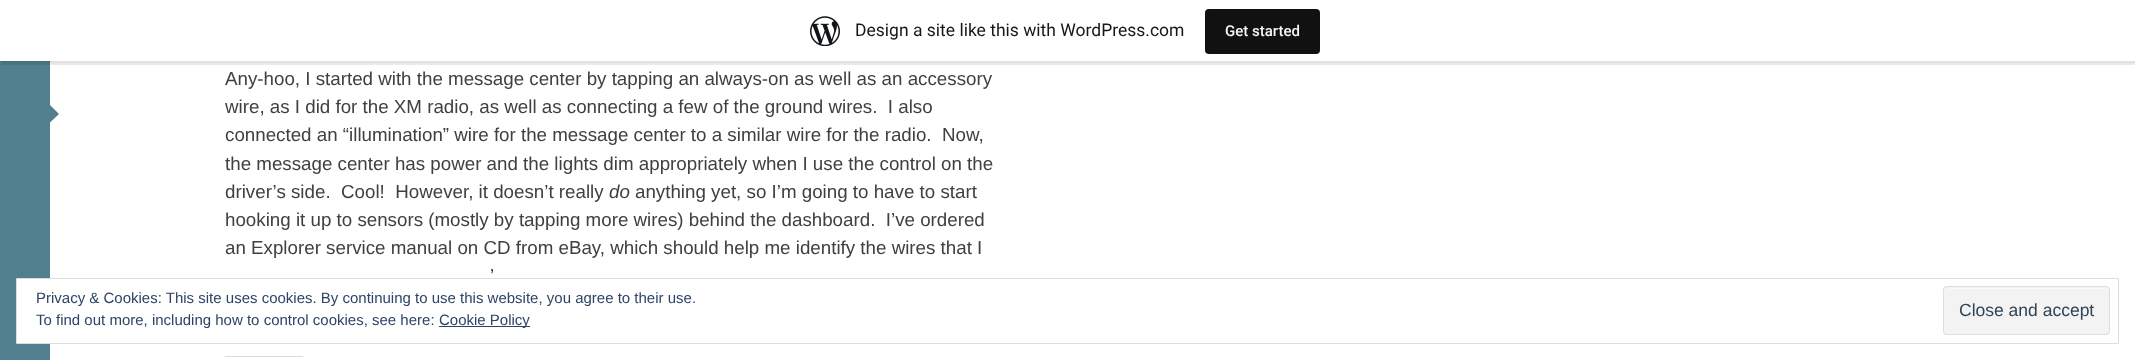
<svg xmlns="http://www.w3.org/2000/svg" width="2135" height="360">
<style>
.a{font:17.5px Roboto;fill:#171717}
.b{font:500 15px Roboto;fill:#f6f7f7}
.c{font:18.75px Liberation Sans;fill:#404040}
.d{font:italic 18.75px Liberation Sans;fill:#404040}
.e{font:15px Liberation Sans;fill:#2e4467}
.f{font:17.5px Liberation Sans;fill:#2e4453}
</style>
<rect width="100%" height="100%" fill="#527f8d"/>
<path fill="#fff" d="M50 61h2085v299H50z"/>
<path fill="#0000000d" filter="blur(1px)" d="M0 1h2135v62H0z"/>
<path fill="#00000014" d="M1 61v4h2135v-61h-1v57z"/>
<path fill="#fff" d="M0 0h2135v61H0z"/>
<image href="1.png" x="810" y="16" width="30" height="30"/>
<rect fill="#111" x="1205" y="9" width="115" height="45" rx="4"/>
<path fill="#527f8d" d="M50 122.5v-17.5l9 9z"/>
<path fill="#dcdcde" d="M225 356h78v1H225z"/>
<path fill="#fff" d="M17 279h33v64H17z"/>
<path fill="none" stroke="#dedede" d="M16.5 278.5h2102v65H16.5z"/>
<rect fill="#f3f3f3" x="1943" y="286" width="167" height="49" rx="4"/>
<path fill="#f9f9f9" d="M1946 289h160c2 0 3 1 3 2c0-2-1-3-3-3h-160c-1 0-2 1-2 3c0-1 1-2 2-2z"/>
<rect fill="none" stroke="#dedede" x="1943.5" y="286.5" width="166" height="48" rx="3.5"/>
<path fill="#2e4467" d="M439 326h91v1H439z"/>
<text class="a" x="855" y="36">Design a site like this with WordPress.com</text>
<text class="b" x="1225" y="36">Get started</text>
<text class="c" x="225" y="85">Any-hoo, I started with the message center by tapping an always-on as well as an accessory</text>
<text class="c" xml:space="preserve" x="225" y="113">wire, as I did for the XM radio, as well as connecting a few of the ground wires.  I also</text>
<text class="c" xml:space="preserve" x="225" y="141">connected an “illumination” wire for the message center to a similar wire for the radio.  Now,</text>
<text class="c" x="225" y="170">the message center has power and the lights dim appropriately when I use the control on the</text>
<text class="c" xml:space="preserve" x="225" y="198">driver’s side.  Cool!  However, it doesn’t really</text>
<text class="d" x="609" y="198">do</text>
<text class="c" x="635" y="198">anything yet, so I’m going to have to start</text>
<text class="c" xml:space="preserve" x="225" y="226">hooking it up to sensors (mostly by tapping more wires) behind the dashboard.  I’ve ordered</text>
<text class="c" x="225" y="254">an Explorer service manual on CD from eBay, which should help me identify the wires that I</text>
<text class="c" x="490" y="282">’</text>
<text class="e" x="36" y="303">Privacy &amp; Cookies: This site uses cookies. By continuing to use this website, you agree to their use.</text>
<text class="f" x="1959" y="316">Close and accept</text>
<text class="e" x="36" y="325">To find out more, including how to control cookies, see here:</text>
<text class="e" x="439" y="325">Cookie Policy</text>
</svg>
